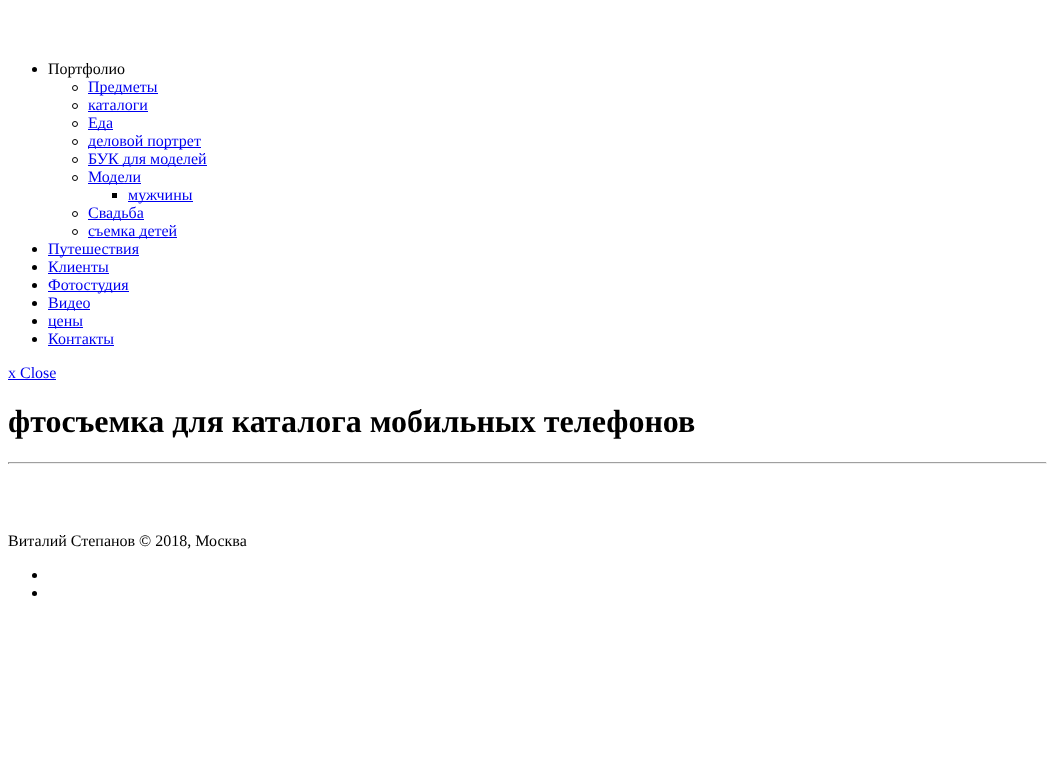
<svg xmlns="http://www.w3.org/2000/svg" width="1055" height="784">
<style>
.a{font:16px Liberation Serif;fill:#000}
.b{font:16px Liberation Serif;fill:#00e}
.c{font:bold 32px Liberation Serif;fill:#000}
</style>
<rect width="100%" height="100%" fill="#fff"/>
<circle fill="#000" cx="34.5" cy="69.5" r="2.5"/>
<circle fill="none" stroke="#000" cx="75" cy="88" r="2.5"/>
<path fill="#00e" d="M88 93h70v1H88z"/>
<circle fill="none" stroke="#000" cx="75" cy="106" r="2.5"/>
<path fill="#00e" d="M88 111h60v1H88z"/>
<circle fill="none" stroke="#000" cx="75" cy="124" r="2.5"/>
<path fill="#00e" d="M88 129h25v1H88z"/>
<circle fill="none" stroke="#000" cx="75" cy="142" r="2.5"/>
<path fill="#00e" d="M88 147h113v1H88z"/>
<circle fill="none" stroke="#000" cx="75" cy="160" r="2.5"/>
<path fill="#00e" d="M88 165h119v1H88z"/>
<circle fill="none" stroke="#000" cx="75" cy="178" r="2.5"/>
<path fill="#00e" d="M88 183h53v1H88z"/>
<path fill="#000" d="M112 193h5v5H112z"/>
<path fill="#00e" d="M128 201h65v1H128z"/>
<circle fill="none" stroke="#000" cx="75" cy="214" r="2.5"/>
<path fill="#00e" d="M88 219h56v1H88z"/>
<circle fill="none" stroke="#000" cx="75" cy="232" r="2.5"/>
<path fill="#00e" d="M88 237h89v1H88z"/>
<circle fill="#000" cx="34.5" cy="249.5" r="2.5"/>
<path fill="#00e" d="M48 255h91v1H48z"/>
<circle fill="#000" cx="34.5" cy="267.5" r="2.5"/>
<path fill="#00e" d="M48 273h61v1H48z"/>
<circle fill="#000" cx="34.5" cy="285.5" r="2.5"/>
<path fill="#00e" d="M48 291h81v1H48z"/>
<circle fill="#000" cx="34.5" cy="303.5" r="2.5"/>
<path fill="#00e" d="M48 309h42v1H48z"/>
<circle fill="#000" cx="34.5" cy="321.5" r="2.5"/>
<path fill="#00e" d="M48 327h35v1H48z"/>
<circle fill="#000" cx="34.5" cy="339.5" r="2.5"/>
<path fill="#00e" d="M48 345h66v1H48z"/>
<path fill="#00e" d="M8 379h48v1H8z"/>
<path fill="#9f9f9f" d="M8 462h1039v1H8z"/>
<path fill="#eee" d="M1046 462h1v2H1046z"/>
<path fill="#eee" d="M8 463h1039v1H8z"/>
<path fill="#9f9f9f" d="M8 462h1v2H8z"/>
<circle fill="#000" cx="34.5" cy="575.5" r="2.5"/>
<circle fill="#000" cx="34.5" cy="593.5" r="2.5"/>
<text class="a" x="48" y="74">Портфолио</text>
<text class="b" x="88" y="92">Предметы</text>
<text class="b" x="88" y="110">каталоги</text>
<text class="b" x="88" y="128">Еда</text>
<text class="b" x="88" y="146">деловой портрет</text>
<text class="b" x="88" y="164">БУК для моделей</text>
<text class="b" x="88" y="182">Модели</text>
<text class="b" x="128" y="200">мужчины</text>
<text class="b" x="88" y="218">Свадьба</text>
<text class="b" x="88" y="236">съемка детей</text>
<text class="b" x="48" y="254">Путешествия</text>
<text class="b" x="48" y="272">Клиенты</text>
<text class="b" x="48" y="290">Фотостудия</text>
<text class="b" x="48" y="308">Видео</text>
<text class="b" x="48" y="326">цены</text>
<text class="b" x="48" y="344">Контакты</text>
<text class="b" x="8" y="378">x Close</text>
<text class="c" x="8" y="432">фтосъемка для каталога мобильных телефонов</text>
<text class="a" x="8" y="546">Виталий Степанов © 2018, Москва</text>
</svg>
